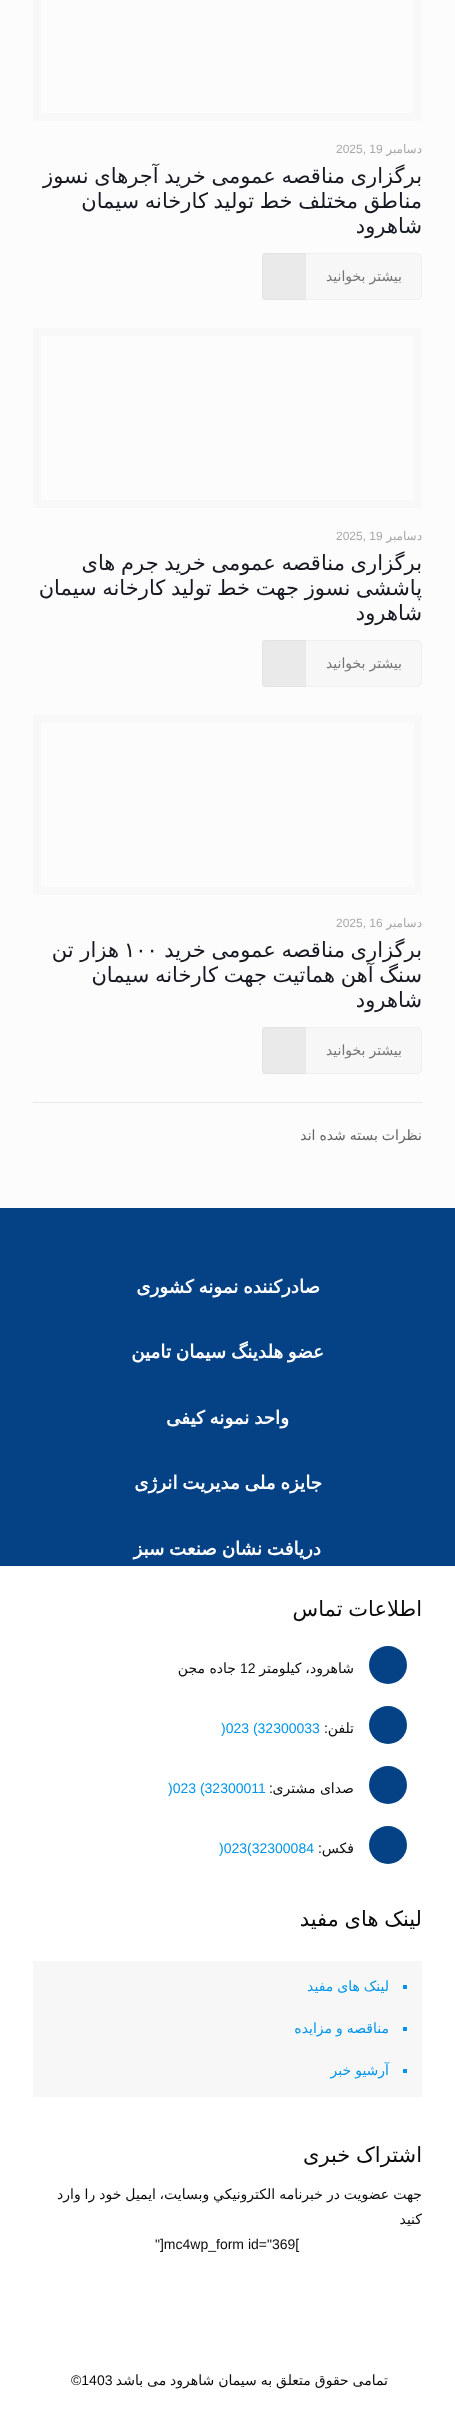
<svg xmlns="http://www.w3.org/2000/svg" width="455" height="2423">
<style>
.a{font:12px DejaVu Sans;direction:rtl;fill:#a8a8a8}
.b{font:12px Liberation Sans;fill:#a8a8a8}
.c{font:21px DejaVu Sans;direction:rtl;fill:#161922}
.d{font:14px DejaVu Sans;direction:rtl;fill:#747474}
.e{font:21px DejaVu Sans;fill:#161922}
.f{font:14px DejaVu Sans;direction:rtl;fill:#626262}
.g{font:bold 18.25px DejaVu Sans;direction:rtl;fill:#fff}
.h{font:21px DejaVu Sans;direction:rtl;fill:#0a0a0a}
.i{font:14px DejaVu Sans;direction:rtl;fill:#0a0a0a}
.j{font:14px Liberation Sans;fill:#0a0a0a}
.k{font:14px Liberation Sans;direction:rtl;fill:#0a0a0a}
.l{font:14px Liberation Sans;fill:#0095eb}
.m{font:14px DejaVu Sans;direction:rtl;fill:#0095eb}
</style>
<rect width="100%" height="100%" fill="#fcfcfc"/>
<path fill="none" stroke="#f8f8f8" stroke-width="8" d="M37 -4h381v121H37z"/>
<rect fill="#f7f7f7" stroke="#f0f0f0" x="262.5" y="253.5" width="159" height="46" rx="4.5"/>
<path fill="#0000000d" d="M262 253h44v47H262z"/>
<path fill="none" stroke="#f8f8f8" stroke-width="8" d="M37 332h381v172H37z"/>
<rect fill="#f7f7f7" stroke="#f0f0f0" x="262.5" y="640.5" width="159" height="46" rx="4.5"/>
<path fill="#0000000d" d="M262 640h44v47H262z"/>
<path fill="none" stroke="#f8f8f8" stroke-width="8" d="M37 719h381v172H37z"/>
<rect fill="#f7f7f7" stroke="#f0f0f0" x="262.5" y="1027.5" width="159" height="46" rx="4.5"/>
<path fill="#0000000d" d="M262 1027h44v47H262z"/>
<path fill="#e8e8e8" d="M33 1102h389v1H33z"/>
<path fill="#fff" d="M0 1566h455v857H0z"/>
<path fill="#044185" d="M0 1208h455v358H0z"/>
<circle fill="#044185" cx="388" cy="1665" r="19"/>
<circle fill="#044185" cx="388" cy="1725" r="19"/>
<circle fill="#044185" cx="388" cy="1785" r="19"/>
<circle fill="#044185" cx="388" cy="1845" r="19"/>
<path fill="#f7f7f7" d="M33 1961h389v136H33z"/>
<path fill="#0095eb" d="M403 1985h4v4H403z"/>
<path fill="#0095eb" d="M403 2027h4v4H403z"/>
<path fill="#0095eb" d="M403 2069h4v4H403z"/>
<text class="a" x="422" y="153">دسامبر</text>
<text class="b" x="336" y="153">2025, 19</text>
<text class="c" x="422" y="183" word-spacing="-1">برگزاری مناقصه عمومی خرید آجرهای نسوز</text>
<text class="c" x="422" y="208" word-spacing="-1">مناطق مختلف خط تولید کارخانه سیمان</text>
<text class="c" x="422" y="233">شاهرود</text>
<text class="d" x="402" y="281" word-spacing="-0.5">بیشتر بخوانید</text>
<text class="a" x="422" y="540">دسامبر</text>
<text class="b" x="336" y="540">2025, 19</text>
<text class="c" x="422" y="570" word-spacing="-1">برگزاری مناقصه عمومی خرید جرم های</text>
<text class="c" x="422" y="595" word-spacing="-1">پاششی نسوز جهت</text>
<text class="c" x="250" y="595" word-spacing="-1">خط تولید کارخانه سیمان</text>
<text class="c" x="422" y="620">شاهرود</text>
<text class="d" x="402" y="668" word-spacing="-0.5">بیشتر بخوانید</text>
<text class="a" x="422" y="927">دسامبر</text>
<text class="b" x="336" y="927">2025, 16</text>
<text class="c" x="422" y="957" word-spacing="-1">برگزاری مناقصه عمومی خرید</text>
<text class="e" x="124" y="957">۱۰۰</text>
<text class="c" x="119" y="957">هزار تن</text>
<text class="c" x="422" y="982" word-spacing="-1">سنگ آهن هماتیت جهت کارخانه سیمان</text>
<text class="c" x="422" y="1007">شاهرود</text>
<text class="d" x="402" y="1055" word-spacing="-0.5">بیشتر بخوانید</text>
<text class="f" x="422" y="1140" word-spacing="-0.5">نظرات بسته شده اند</text>
<text class="g" x="320" y="1293" word-spacing="-1">صادرکننده نمونه کشوری</text>
<text class="g" x="324" y="1358" word-spacing="-1">عضو هلدینگ سیمان تامین</text>
<text class="g" x="289" y="1424" word-spacing="-1">واحد نمونه کیفی</text>
<text class="g" x="322" y="1489" word-spacing="-1">جایزه ملی مدیریت انرژی</text>
<text class="g" x="321" y="1555" word-spacing="-1">دریافت نشان صنعت سبز</text>
<text class="h" x="422" y="1616" word-spacing="-1">اطلاعات تماس</text>
<text class="i" x="354" y="1673" word-spacing="-0.5">شاهرود، کیلومتر</text>
<text class="j" x="240" y="1673">12</text>
<text class="i" x="236" y="1673">جاده مجن</text>
<text class="i" x="354" y="1733">تلفن</text>
<text class="k" x="328" y="1733">:</text>
<text class="l" x="221" y="1733">)023 (32300033</text>
<text class="i" x="354" y="1793">صدای مشتری</text>
<text class="k" x="273" y="1793">:</text>
<text class="l" x="168" y="1793">)023 (32300011</text>
<text class="i" x="354" y="1853">فکس</text>
<text class="k" x="322" y="1853">:</text>
<text class="l" x="219" y="1853">)023(32300084</text>
<text class="h" x="422" y="1926" word-spacing="-1">لینک های مفید</text>
<text class="m" x="389" y="1991" word-spacing="-0.5">لینک های مفید</text>
<text class="m" x="389" y="2033" word-spacing="-0.5">مناقصه و مزایده</text>
<text class="m" x="389" y="2075" word-spacing="-0.5">آرشیو خبر</text>
<text class="h" x="422" y="2162" word-spacing="-1">اشتراک خبری</text>
<text class="i" x="422" y="2199" word-spacing="-0.5">جهت عضويت در خبرنامه الكترونيكي وبسايت،</text>
<text class="i" x="156" y="2199" word-spacing="-0.5">ایمیل خود را وارد</text>
<text class="i" x="422" y="2224">کنید</text>
<text class="j" x="155" y="2249">"]mc4wp_form id="369[</text>
<text class="i" x="388" y="2385" word-spacing="-0.5">تمامی حقوق متعلق به سیمان شاهرود می باشد</text>
<text class="j" x="71" y="2385">©1403</text>
</svg>
